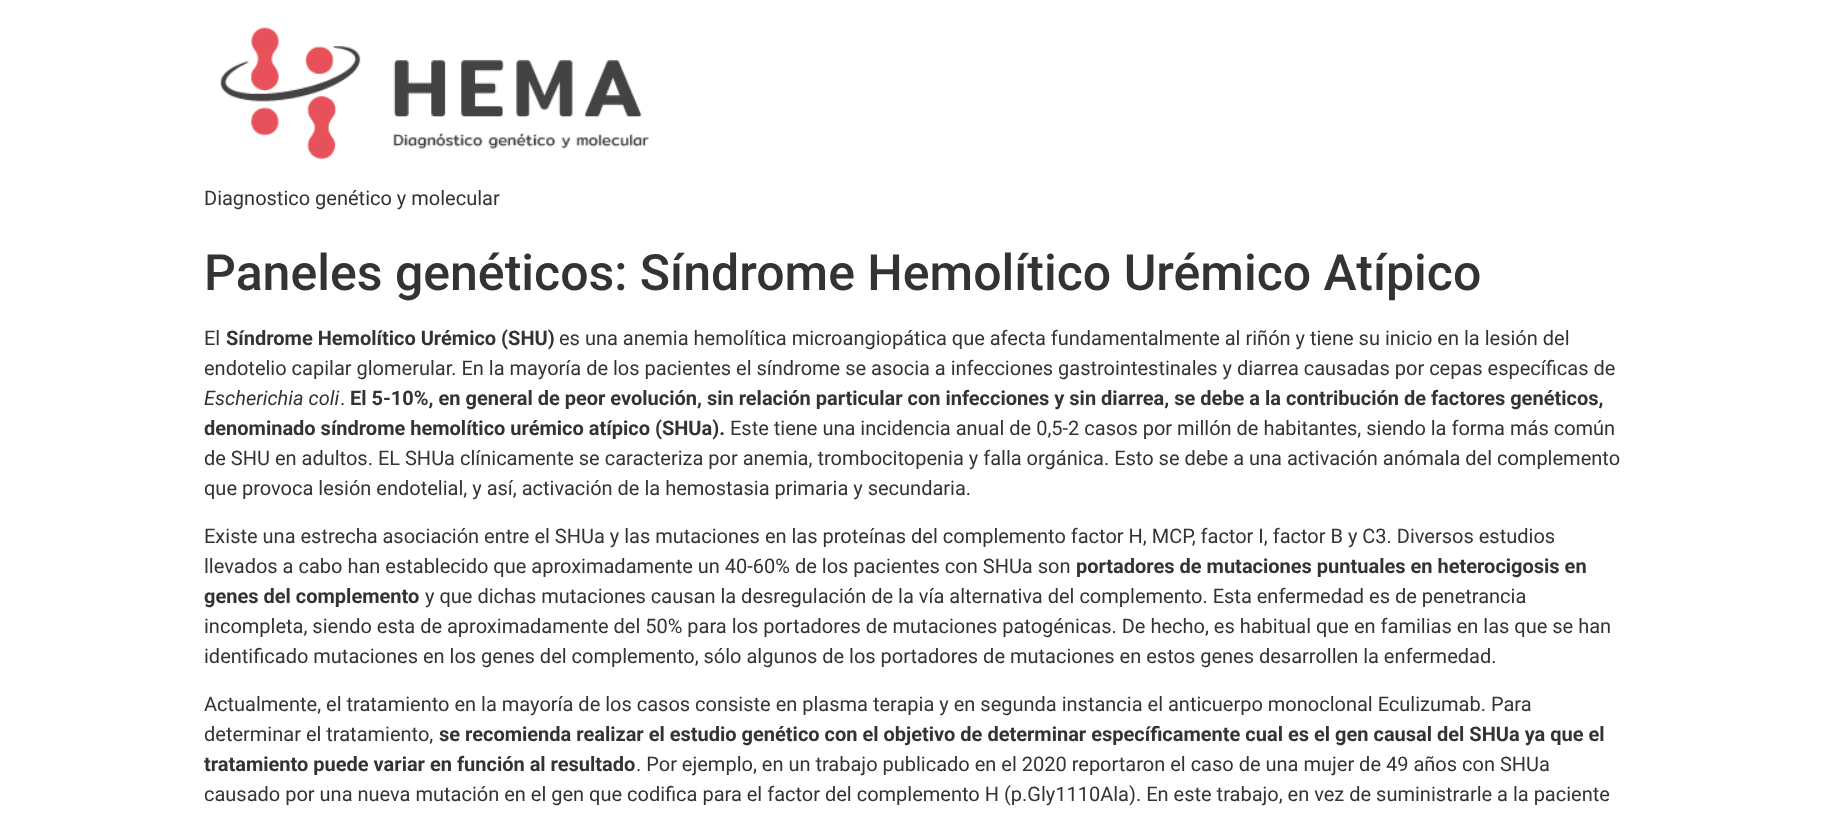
<svg xmlns="http://www.w3.org/2000/svg" width="1833" height="823">
<style>
.a{font:20px Roboto;fill:#333}
.b{font:500 50px Roboto;fill:#333}
.c{font:bold 20px Roboto;fill:#333}
.d{font:italic 20px Roboto;fill:#333}
</style>
<rect width="100%" height="100%" fill="#fff"/>
<image href="1.png" x="220" y="27" width="429" height="132"/>
<text class="a" x="204" y="205">Diagnostico genético y molecular</text>
<text class="b" x="204" y="290">Paneles genéticos: Síndrome Hemolítico Urémico Atípico</text>
<text class="a" x="204" y="345">El</text>
<text class="c" x="226" y="345">Síndrome Hemolítico Urémico (SHU)</text>
<text class="a" x="559" y="345">es una anemia hemolítica microangiopática que afecta fundamentalmente al riñón y tiene su inicio en la lesión del</text>
<text class="a" x="204" y="375">endotelio capilar glomerular. En la mayoría de los pacientes el síndrome se asocia a infecciones gastrointestinales y diarrea causadas por cepas específicas de</text>
<text class="d" x="204" y="405">Escherichia coli</text>
<text class="a" x="340" y="405">.</text>
<text class="c" x="350" y="405">El 5-10%, en general de peor evolución, sin relación particular con infecciones y sin diarrea, se debe a la contribución de factores genéticos,</text>
<text class="c" x="204" y="435">denominado síndrome hemolítico urémico atípico (SHUa).</text>
<text class="a" x="730" y="435">Este tiene una incidencia anual de 0,5-2 casos por millón de habitantes, siendo la forma más común</text>
<text class="a" x="204" y="465">de SHU en adultos. EL SHUa clínicamente se caracteriza por anemia, trombocitopenia y falla orgánica. Esto se debe a una activación anómala del complemento</text>
<text class="a" x="204" y="495">que provoca lesión endotelial, y así, activación de la hemostasia primaria y secundaria.</text>
<text class="a" x="204" y="543">Existe una estrecha asociación entre el SHUa y las mutaciones en las proteínas del complemento factor H, MCP, factor I, factor B y C3. Diversos estudios</text>
<text class="a" x="204" y="573">llevados a cabo han establecido que aproximadamente un 40-60% de los pacientes con SHUa son</text>
<text class="c" x="1076" y="573">portadores de mutaciones puntuales en heterocigosis en</text>
<text class="c" x="204" y="603">genes del complemento</text>
<text class="a" x="425" y="603">y que dichas mutaciones causan la desregulación de la vía alternativa del complemento. Esta enfermedad es de penetrancia</text>
<text class="a" x="204" y="633">incompleta, siendo esta de aproximadamente del 50% para los portadores de mutaciones patogénicas. De hecho, es habitual que en familias en las que se han</text>
<text class="a" x="204" y="663">identificado mutaciones en los genes del complemento, sólo algunos de los portadores de mutaciones en estos genes desarrollen la enfermedad.</text>
<text class="a" x="204" y="711">Actualmente, el tratamiento en la mayoría de los casos consiste en plasma terapia y en segunda instancia el anticuerpo monoclonal Eculizumab. Para</text>
<text class="a" x="204" y="741">determinar el tratamiento,</text>
<text class="c" x="439" y="741">se recomienda realizar el estudio genético con el objetivo de determinar específicamente cual es el gen causal del SHUa ya que el</text>
<text class="c" x="204" y="771">tratamiento puede variar en función al resultado</text>
<text class="a" x="636" y="771">. Por ejemplo, en un trabajo publicado en el 2020 reportaron el caso de una mujer de 49 años con SHUa</text>
<text class="a" x="204" y="801">causado por una nueva mutación en el gen que codifica para el factor del complemento H (p.Gly1110Ala). En este trabajo, en vez de suministrarle a la paciente</text>
</svg>
